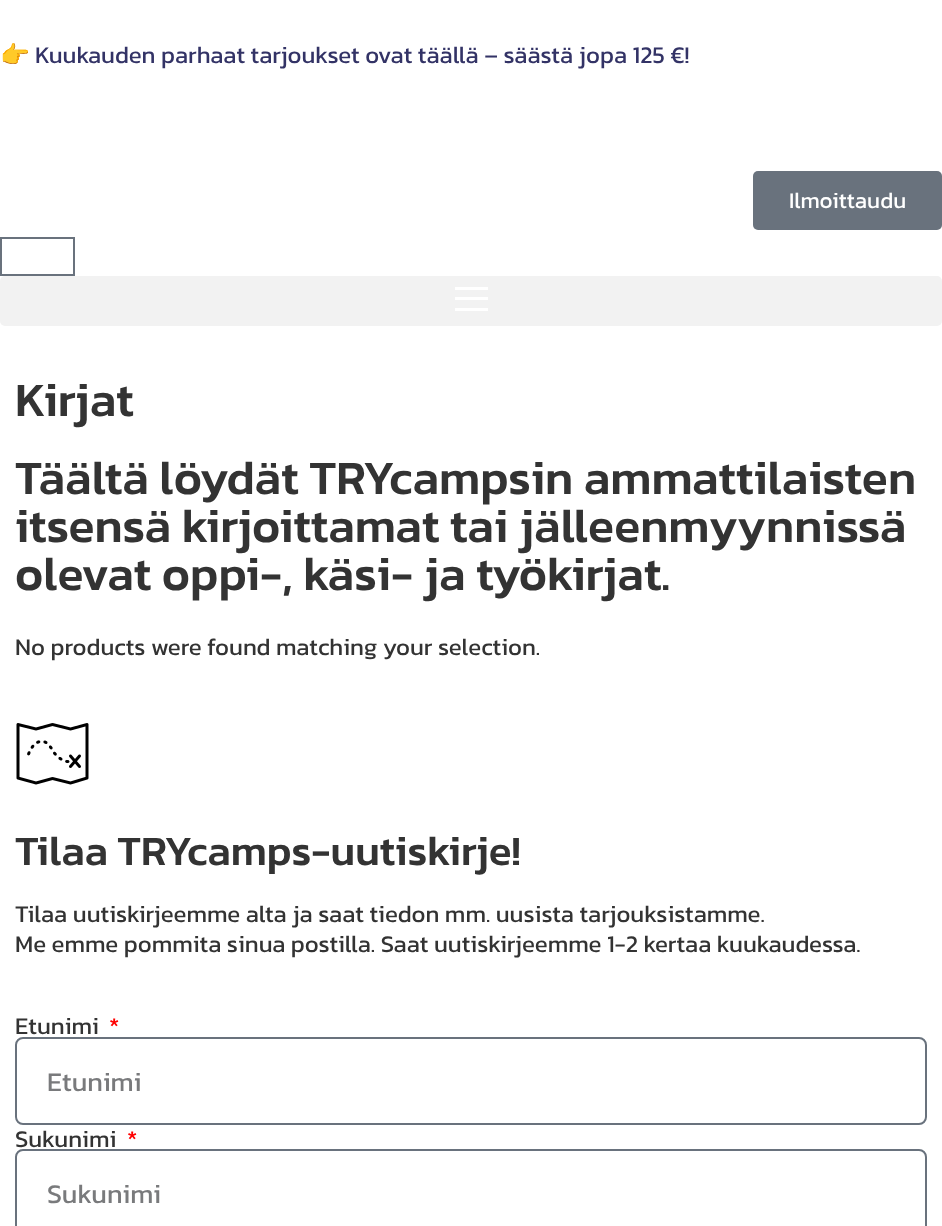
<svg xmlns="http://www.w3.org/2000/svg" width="942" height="1226">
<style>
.a{font:24px Noto Color Emoji;fill:#336}
.b{font:24px Kanit;fill:#336}
.c{font:22.5px Kanit;fill:#fff}
.d{font:500 48px Kanit;fill:#333}
.e{font:24px Kanit;fill:#333}
.f{font:500 42px Kanit;fill:#333}
.g{font:24px Kanit;fill:#f00}
.h{font:27px Kanit;fill:#797a7c}
</style>
<rect width="100%" height="100%" fill="#fff"/>
<rect fill="#69727d" x="753" y="171" width="189" height="59" rx="5"/>
<path fill="none" stroke="#69727d" stroke-width="2" d="M1 238h73v37H1z"/>
<rect fill="#f2f2f2" y="276" width="942" height="50" rx="5"/>
<path fill="#fff" d="M455 287h33v3H455z"/>
<path fill="#fff" d="M455 297h33v3H455z"/>
<path fill="#fff" d="M455 308h33v3H455z"/>
<image href="1.png" x="16" y="723" width="73" height="62"/>
<rect fill="none" stroke="#69727d" stroke-width="2" x="16" y="1038" width="910" height="86" rx="7"/>
<rect fill="none" stroke="#69727d" stroke-width="2" x="16" y="1150" width="910" height="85" rx="7"/>
<text class="a" x="0" y="63">👉</text>
<text class="b" x="35" y="63">Kuukauden parhaat tarjoukset ovat täällä – säästä jopa 125 €!</text>
<text class="c" x="789" y="208">Ilmoittaudu</text>
<text class="d" x="15" y="416">Kirjat</text>
<text class="d" x="15" y="494">Täältä löydät TRYcampsin ammattilaisten</text>
<text class="d" x="15" y="542">itsensä kirjoittamat tai jälleenmyynnissä</text>
<text class="d" x="15" y="590">olevat oppi-, käsi- ja työkirjat.</text>
<text class="e" x="15" y="655">No products were found matching your selection.</text>
<text class="f" x="15" y="865">Tilaa TRYcamps-uutiskirje!</text>
<text class="e" x="15" y="922">Tilaa uutiskirjeemme alta ja saat tiedon mm. uusista tarjouksistamme.</text>
<text class="e" x="15" y="952">Me emme pommita sinua postilla. Saat uutiskirjeemme 1-2 kertaa kuukaudessa.</text>
<text class="e" x="15" y="1034">Etunimi</text>
<text class="g" x="109" y="1034">*</text>
<text class="h" x="47" y="1091">Etunimi</text>
<text class="e" x="15" y="1147">Sukunimi</text>
<text class="g" x="127" y="1147">*</text>
<text class="h" x="47" y="1203">Sukunimi</text>
</svg>
